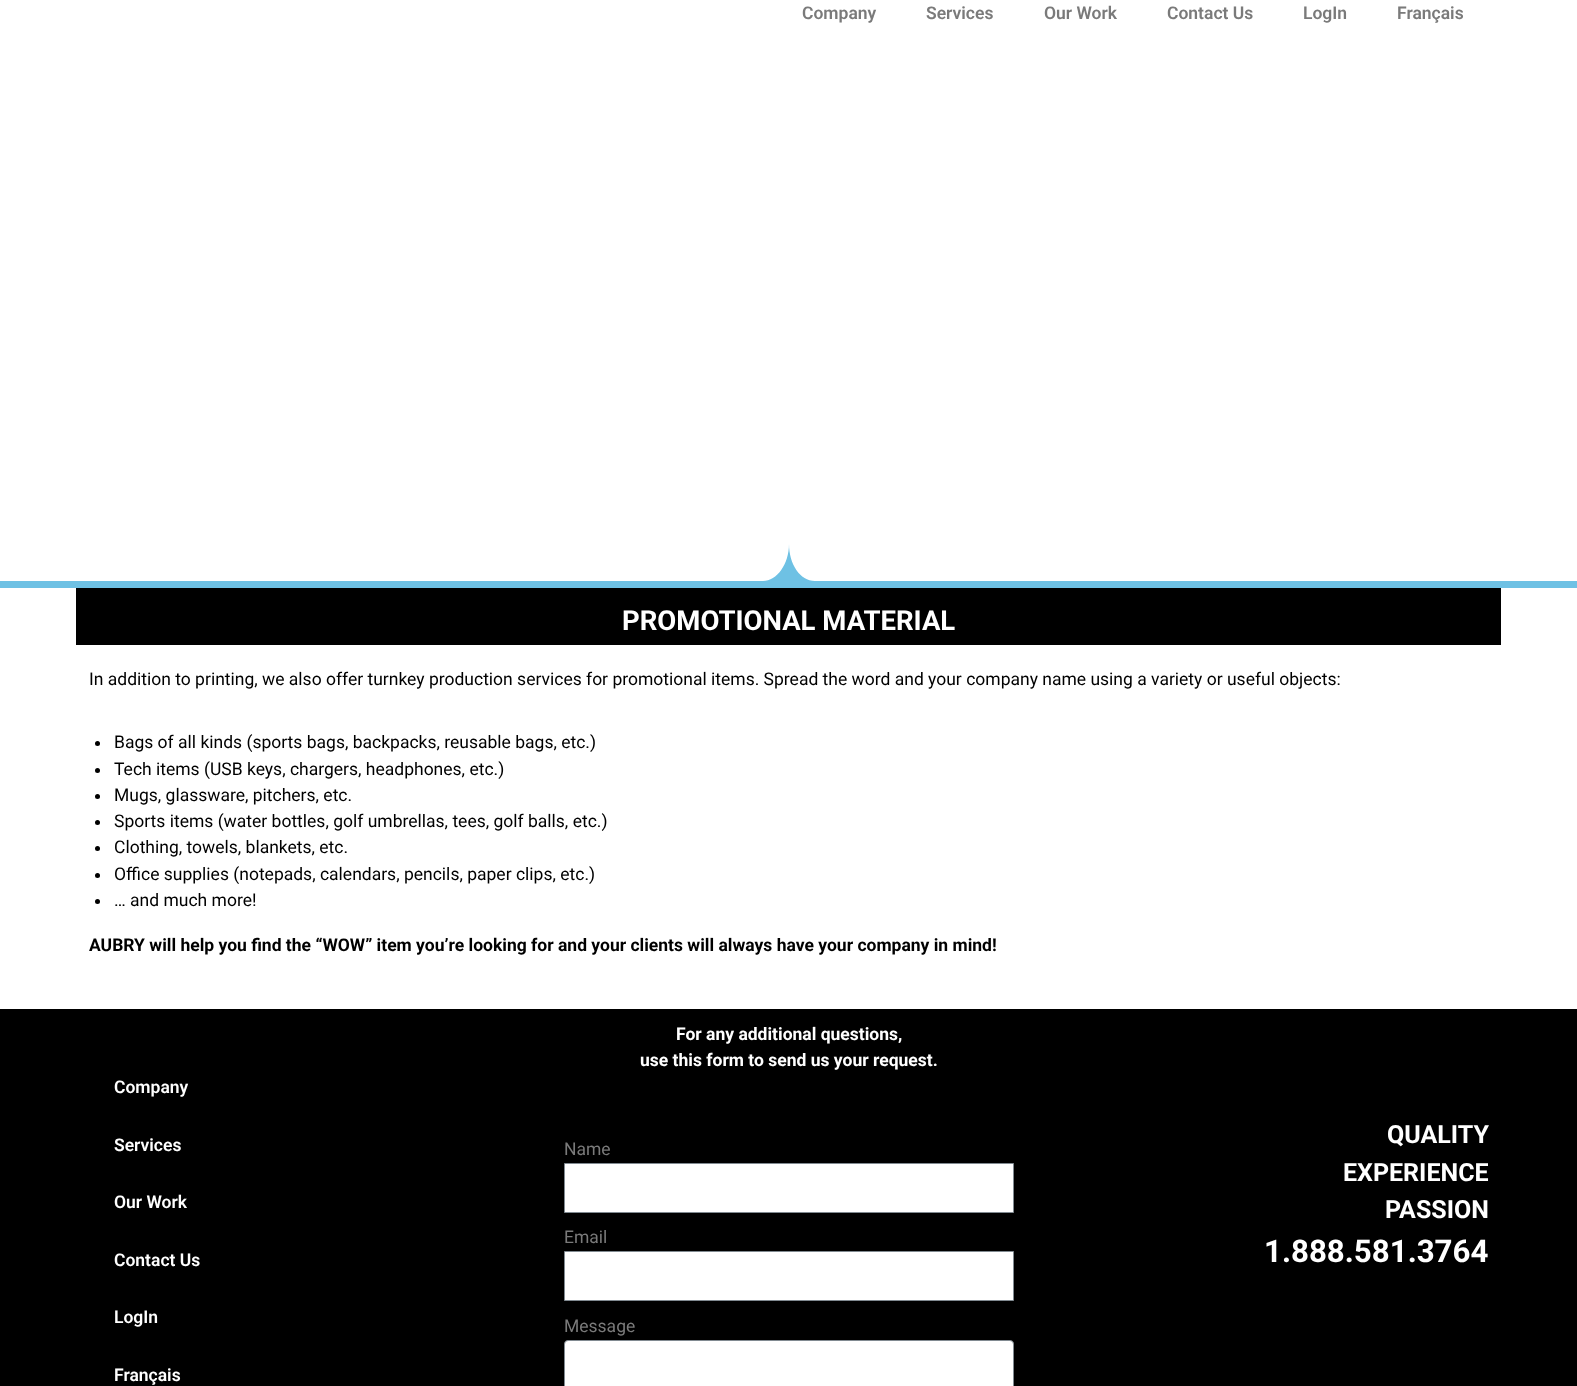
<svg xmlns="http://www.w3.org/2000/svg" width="1577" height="1386">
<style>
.a{font:600 17.5px Roboto;fill:#7a7a7a}
.b{font:bold 27.5px Roboto;fill:#fff}
.c{font:17.5px Roboto;fill:#000}
.d{font:bold 17.5px Roboto;fill:#000}
.e{font:600 17.5px Roboto;fill:#fff}
.f{font:bold 17.5px Roboto;fill:#fff}
.g{font:17.5px Roboto;fill:#7a7a7a}
.h{font:bold 25px Roboto;fill:#fff}
.i{font:bold 31.25px Roboto;fill:#fff}
</style>
<rect width="100%" height="100%" fill="#fff"/>
<path fill="#6ec1e4" d="M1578 588v-7h-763c-15 0-26-17-26-37c0 20-12 37-26 37h-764v7z"/>
<path fill="#000" d="M76 588h1425v57H76z"/>
<circle fill="#000" cx="97.5" cy="743.5" r="2.5"/>
<circle fill="#000" cx="97.5" cy="770.5" r="2.5"/>
<circle fill="#000" cx="97.5" cy="796.5" r="2.5"/>
<circle fill="#000" cx="97.5" cy="822.5" r="2.5"/>
<circle fill="#000" cx="97.5" cy="848.5" r="2.5"/>
<circle fill="#000" cx="97.5" cy="875.5" r="2.5"/>
<circle fill="#000" cx="97.5" cy="901.5" r="2.5"/>
<path fill="#000" d="M0 1009h1577v377H0z"/>
<path fill="#fff" stroke="#818a91" d="M564.5 1163.5h449v49H564.5z"/>
<path fill="#fff" stroke="#818a91" d="M564.5 1251.5h449v49H564.5z"/>
<rect fill="#fff" stroke="#818a91" x="564.5" y="1340.5" width="449" height="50" rx="3.5"/>
<text class="a" x="802" y="19">Company</text>
<text class="a" x="926" y="19">Services</text>
<text class="a" x="1044" y="19">Our Work</text>
<text class="a" x="1167" y="19">Contact Us</text>
<text class="a" x="1303" y="19">LogIn</text>
<text class="a" x="1397" y="19">Français</text>
<text class="b" x="622" y="630">PROMOTIONAL MATERIAL</text>
<text class="c" x="89" y="685">In addition to printing, we also offer turnkey production services for promotional items. Spread the word and your company name using a variety or useful objects:</text>
<text class="c" x="114" y="748">Bags of all kinds (sports bags, backpacks, reusable bags, etc.)</text>
<text class="c" x="114" y="775">Tech items (USB keys, chargers, headphones, etc.)</text>
<text class="c" x="114" y="801">Mugs, glassware, pitchers, etc.</text>
<text class="c" x="114" y="827">Sports items (water bottles, golf umbrellas, tees, golf balls, etc.)</text>
<text class="c" x="114" y="853">Clothing, towels, blankets, etc.</text>
<text class="c" x="114" y="880">Office supplies (notepads, calendars, pencils, paper clips, etc.)</text>
<text class="c" x="114" y="906">… and much more!</text>
<text class="d" x="89" y="951">AUBRY will help you find the “WOW” item you’re looking for and your clients will always have your company in mind!</text>
<text class="e" x="114" y="1093">Company</text>
<text class="e" x="114" y="1151">Services</text>
<text class="e" x="114" y="1208">Our Work</text>
<text class="e" x="114" y="1266">Contact Us</text>
<text class="e" x="114" y="1323">LogIn</text>
<text class="e" x="114" y="1381">Français</text>
<text class="f" x="676" y="1040">For any additional questions,</text>
<text class="f" x="640" y="1066">use this form to send us your request.</text>
<text class="g" x="564" y="1155">Name</text>
<text class="g" x="564" y="1243">Email</text>
<text class="g" x="564" y="1332">Message</text>
<text class="h" x="1387" y="1143">QUALITY</text>
<text class="h" x="1343" y="1181">EXPERIENCE</text>
<text class="h" x="1385" y="1218">PASSION</text>
<text class="i" x="1264" y="1262">1.888.581.3764</text>
</svg>
